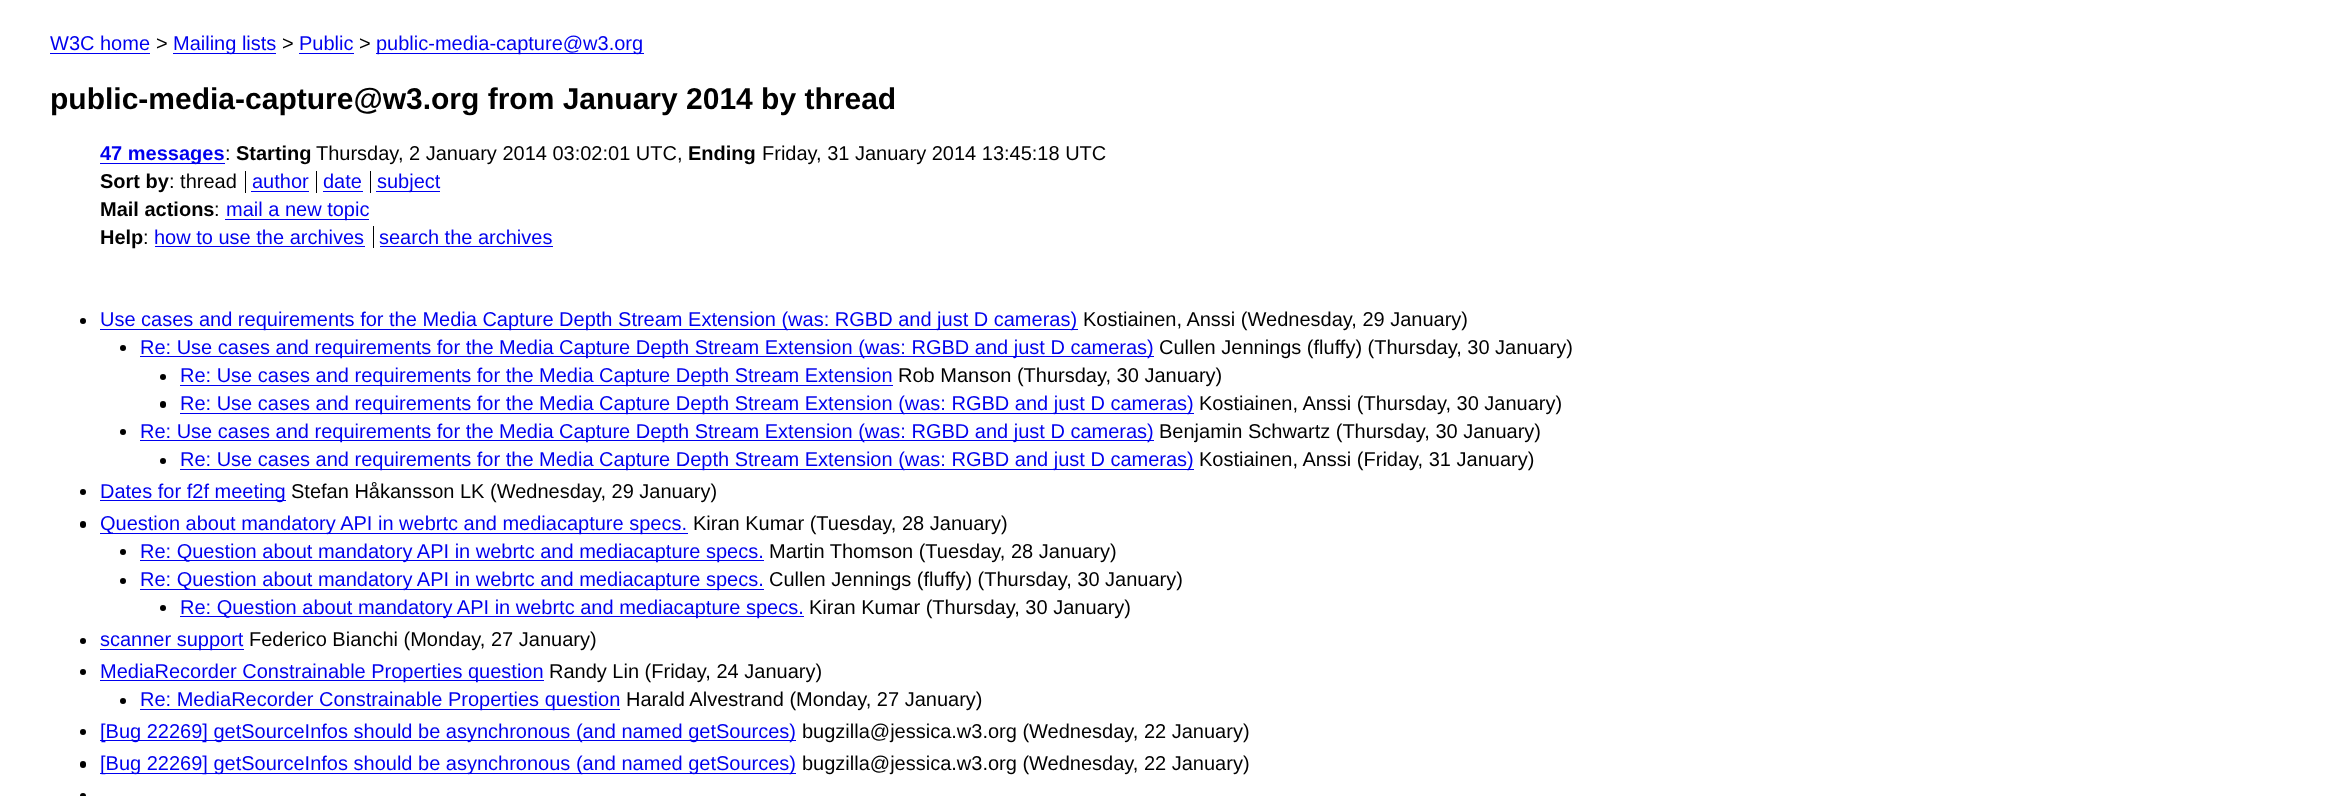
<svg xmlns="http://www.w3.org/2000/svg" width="2342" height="796">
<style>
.a{font:20px Liberation Sans;fill:#00e}
.b{font:20px Liberation Sans;fill:#000}
.c{font:bold 30px Liberation Sans;fill:#000}
.d{font:bold 20px Liberation Sans;fill:#00e}
.e{font:bold 20px Liberation Sans;fill:#000}
</style>
<rect width="100%" height="100%" fill="#fff"/>
<path fill="#00e" d="M50 53h100v1H50z"/>
<path fill="#00e" d="M173 53h103v1H173z"/>
<path fill="#00e" d="M299 53h55v1H299z"/>
<path fill="#00e" d="M376 53h268v1H376z"/>
<path fill="#00e" d="M100 163h125v1H100z"/>
<path fill="#000" d="M245 171h1v22H245z"/>
<path fill="#00e" d="M251 191h58v1H251z"/>
<path fill="#000" d="M316 171h1v22H316z"/>
<path fill="#00e" d="M323 191h40v1H323z"/>
<path fill="#000" d="M370 171h1v22H370z"/>
<path fill="#00e" d="M376 191h64v1H376z"/>
<path fill="#00e" d="M225 219h144v1H225z"/>
<path fill="#00e" d="M155 246h210v1H155z"/>
<path fill="#000" d="M373 226h1v22H373z"/>
<path fill="#00e" d="M380 246h173v1H380z"/>
<circle fill="#000" cx="83" cy="321" r="3"/>
<path fill="#00e" d="M100 329h978v1H100z"/>
<circle fill="#000" cx="123" cy="348" r="3"/>
<path fill="#00e" d="M140 356h1014v1H140z"/>
<circle fill="#000" cx="163" cy="377" r="3"/>
<path fill="#00e" d="M180 385h713v1H180z"/>
<rect fill="#000" x="160" y="401" width="6" height="7" rx="3"/>
<path fill="#00e" d="M180 413h1014v1H180z"/>
<circle fill="#000" cx="123" cy="432" r="3"/>
<path fill="#00e" d="M140 440h1014v1H140z"/>
<circle fill="#000" cx="163" cy="461" r="3"/>
<path fill="#00e" d="M180 469h1014v1H180z"/>
<circle fill="#000" cx="83" cy="492" r="3"/>
<path fill="#00e" d="M100 500h186v1H100z"/>
<rect fill="#000" x="80" y="521" width="6" height="7" rx="3"/>
<path fill="#00e" d="M100 533h588v1H100z"/>
<circle fill="#000" cx="123" cy="552" r="3"/>
<path fill="#00e" d="M140 560h624v1H140z"/>
<circle fill="#000" cx="123" cy="581" r="3"/>
<path fill="#00e" d="M140 589h624v1H140z"/>
<circle fill="#000" cx="163" cy="608" r="3"/>
<path fill="#00e" d="M180 616h624v1H180z"/>
<circle fill="#000" cx="83" cy="641" r="3"/>
<path fill="#00e" d="M100 649h144v1H100z"/>
<circle fill="#000" cx="83" cy="672" r="3"/>
<path fill="#00e" d="M100 680h444v1H100z"/>
<circle fill="#000" cx="123" cy="701" r="3"/>
<path fill="#00e" d="M140 709h480v1H140z"/>
<circle fill="#000" cx="83" cy="732" r="3"/>
<path fill="#00e" d="M100 740h696v1H100z"/>
<rect fill="#000" x="80" y="761" width="6" height="7" rx="3"/>
<path fill="#00e" d="M100 773h696v1H100z"/>
<circle fill="#000" cx="83" cy="796" r="3"/>
<text class="a" x="50" y="50">W3C home</text>
<text class="b" x="156" y="50">&gt;</text>
<text class="a" x="173" y="50">Mailing lists</text>
<text class="b" x="282" y="50">&gt;</text>
<text class="a" x="299" y="50">Public</text>
<text class="b" x="359" y="50">&gt;</text>
<text class="a" x="376" y="50">public-media-capture@w3.org</text>
<text class="c" x="50" y="109">public-media-capture@w3.org from January 2014 by thread</text>
<text class="d" x="100" y="160">47 messages</text>
<text class="b" x="225" y="160">:</text>
<text class="e" x="236" y="160">Starting</text>
<text class="b" x="316" y="160">Thursday, 2 January 2014 03:02:01 UTC,</text>
<text class="e" x="688" y="160">Ending</text>
<text class="b" x="762" y="160">Friday, 31 January 2014 13:45:18 UTC</text>
<text class="e" x="100" y="188">Sort by</text>
<text class="b" x="169" y="188">: thread</text>
<text class="a" x="252" y="188">author</text>
<text class="a" x="323" y="188">date</text>
<text class="a" x="377" y="188">subject</text>
<text class="e" x="100" y="216">Mail actions</text>
<text class="b" x="214" y="216">:</text>
<text class="a" x="226" y="216">mail a new topic</text>
<text class="e" x="100" y="244">Help</text>
<text class="b" x="143" y="244">:</text>
<text class="a" x="154" y="244">how to use the archives</text>
<text class="a" x="379" y="244">search the archives</text>
<text class="a" x="100" y="326">Use cases and requirements for the Media Capture Depth Stream Extension (was: RGBD and just D cameras)</text>
<text class="b" x="1083" y="326">Kostiainen, Anssi (Wednesday, 29 January)</text>
<text class="a" x="140" y="354">Re: Use cases and requirements for the Media Capture Depth Stream Extension (was: RGBD and just D cameras)</text>
<text class="b" x="1159" y="354">Cullen Jennings (fluffy) (Thursday, 30 January)</text>
<text class="a" x="180" y="382">Re: Use cases and requirements for the Media Capture Depth Stream Extension</text>
<text class="b" x="898" y="382">Rob Manson (Thursday, 30 January)</text>
<text class="a" x="180" y="410">Re: Use cases and requirements for the Media Capture Depth Stream Extension (was: RGBD and just D cameras)</text>
<text class="b" x="1199" y="410">Kostiainen, Anssi (Thursday, 30 January)</text>
<text class="a" x="140" y="438">Re: Use cases and requirements for the Media Capture Depth Stream Extension (was: RGBD and just D cameras)</text>
<text class="b" x="1159" y="438">Benjamin Schwartz (Thursday, 30 January)</text>
<text class="a" x="180" y="466">Re: Use cases and requirements for the Media Capture Depth Stream Extension (was: RGBD and just D cameras)</text>
<text class="b" x="1199" y="466">Kostiainen, Anssi (Friday, 31 January)</text>
<text class="a" x="100" y="498">Dates for f2f meeting</text>
<text class="b" x="291" y="498">Stefan Håkansson LK (Wednesday, 29 January)</text>
<text class="a" x="100" y="530">Question about mandatory API in webrtc and mediacapture specs.</text>
<text class="b" x="693" y="530">Kiran Kumar (Tuesday, 28 January)</text>
<text class="a" x="140" y="558">Re: Question about mandatory API in webrtc and mediacapture specs.</text>
<text class="b" x="769" y="558">Martin Thomson (Tuesday, 28 January)</text>
<text class="a" x="140" y="586">Re: Question about mandatory API in webrtc and mediacapture specs.</text>
<text class="b" x="769" y="586">Cullen Jennings (fluffy) (Thursday, 30 January)</text>
<text class="a" x="180" y="614">Re: Question about mandatory API in webrtc and mediacapture specs.</text>
<text class="b" x="809" y="614">Kiran Kumar (Thursday, 30 January)</text>
<text class="a" x="100" y="646">scanner support</text>
<text class="b" x="249" y="646">Federico Bianchi (Monday, 27 January)</text>
<text class="a" x="100" y="678">MediaRecorder Constrainable Properties question</text>
<text class="b" x="549" y="678">Randy Lin (Friday, 24 January)</text>
<text class="a" x="140" y="706">Re: MediaRecorder Constrainable Properties question</text>
<text class="b" x="626" y="706">Harald Alvestrand (Monday, 27 January)</text>
<text class="a" x="100" y="738">[Bug 22269] getSourceInfos should be asynchronous (and named getSources)</text>
<text class="b" x="802" y="738">bugzilla@jessica.w3.org (Wednesday, 22 January)</text>
<text class="a" x="100" y="770">[Bug 22269] getSourceInfos should be asynchronous (and named getSources)</text>
<text class="b" x="802" y="770">bugzilla@jessica.w3.org (Wednesday, 22 January)</text>
</svg>
